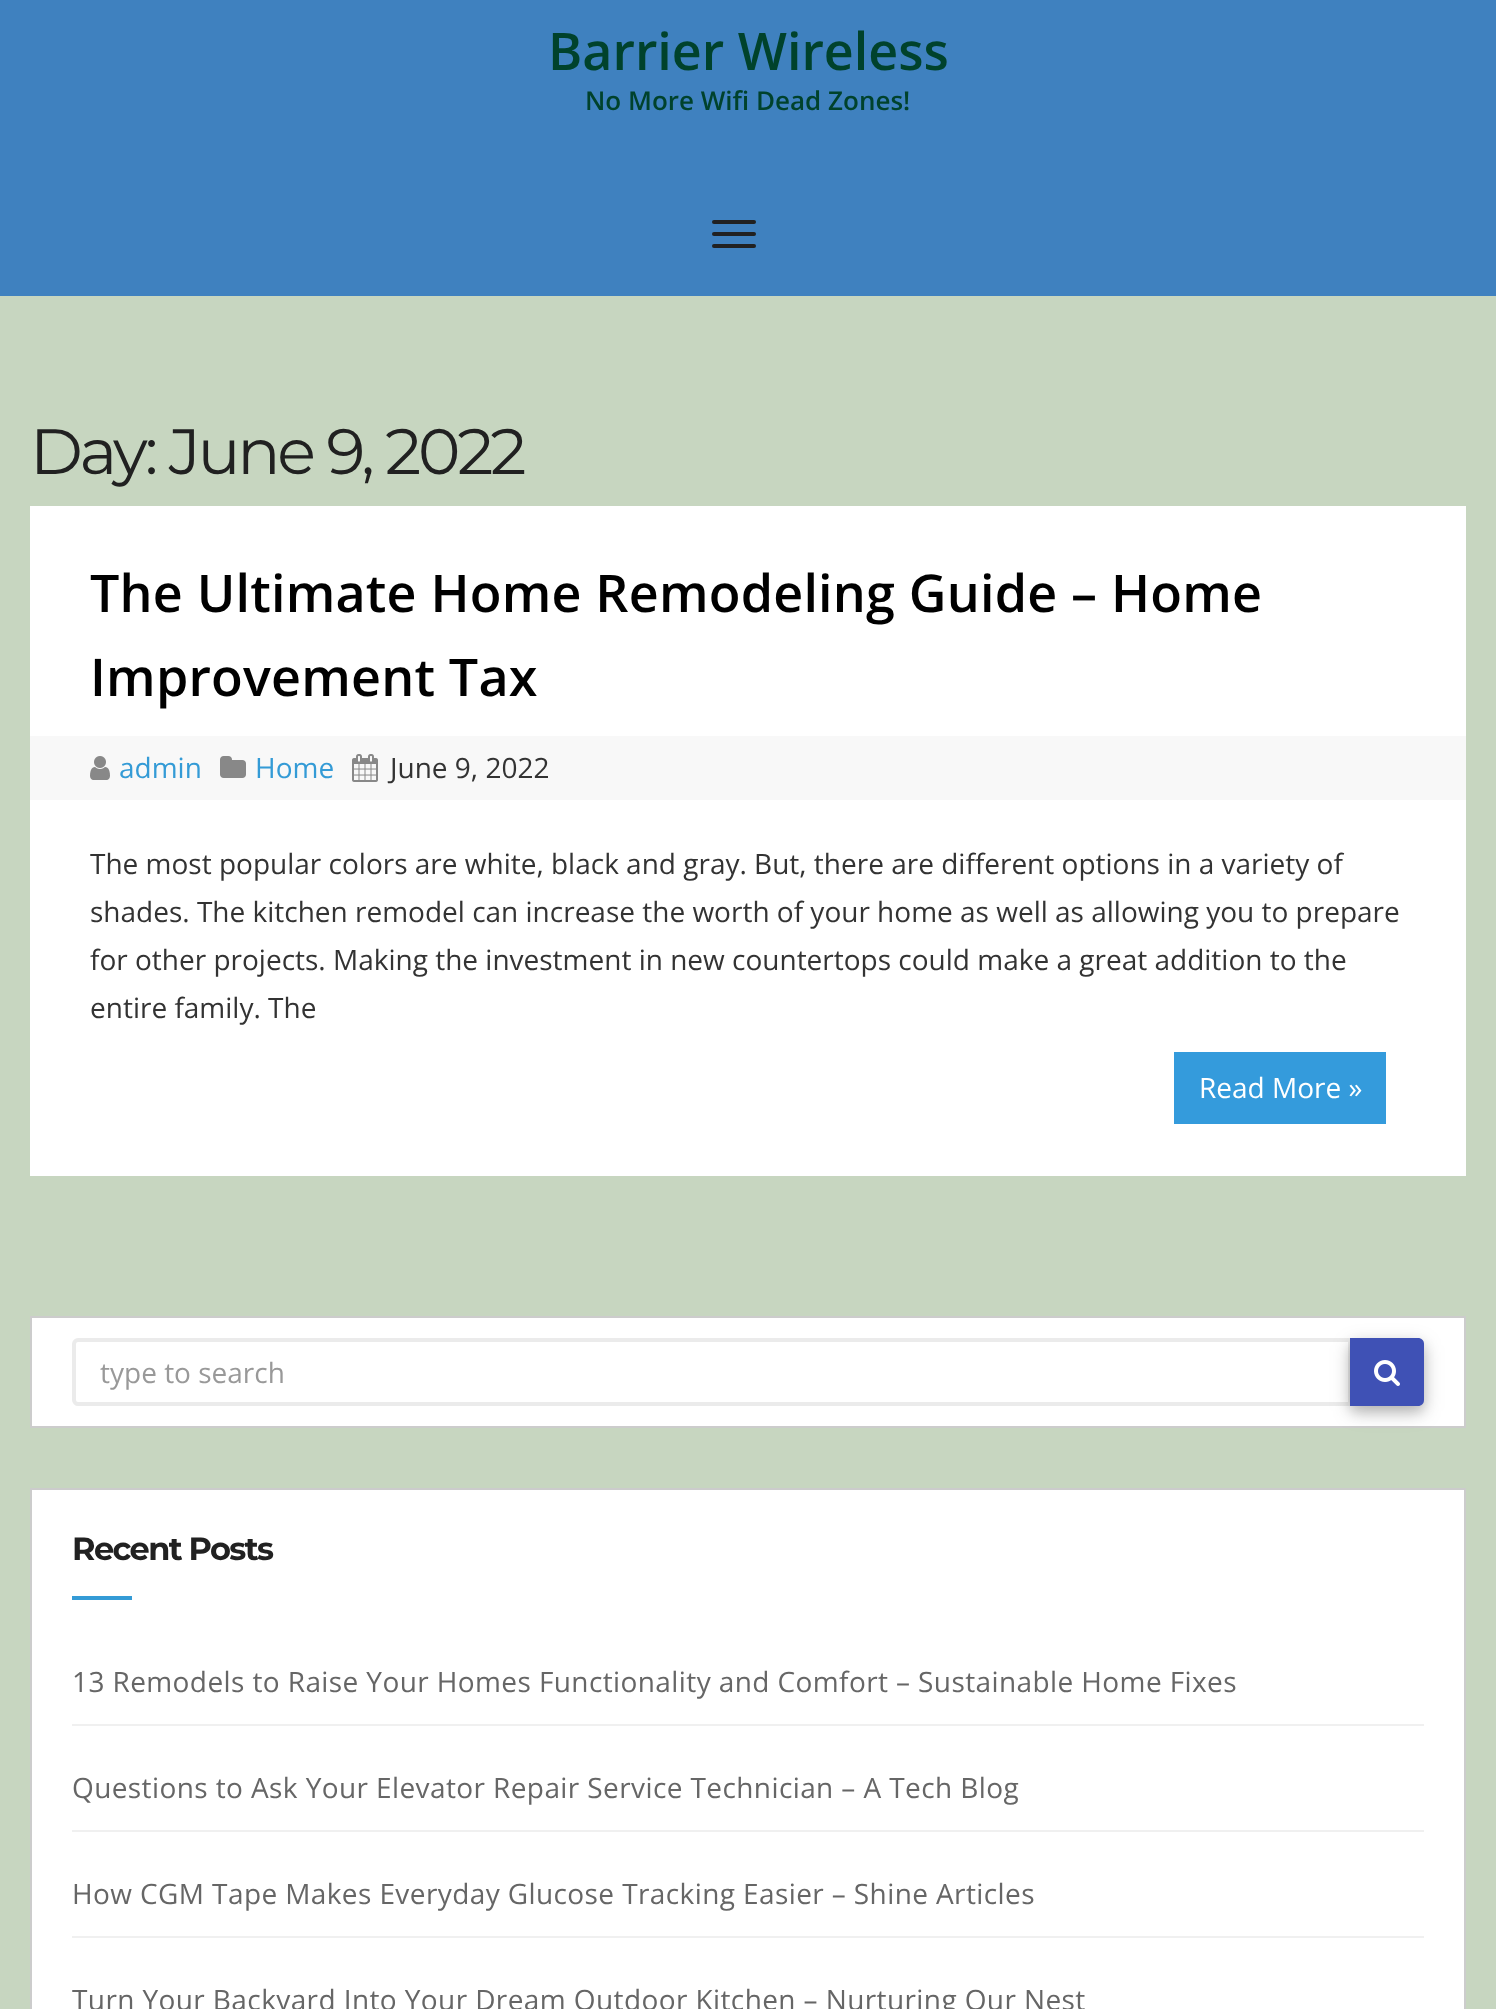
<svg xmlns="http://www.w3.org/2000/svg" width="1496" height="2009">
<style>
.a{font:600 52px Open Sans;fill:#00422c}
.b{font:600 26px Open Sans;fill:#00422c}
.c{font:64px Montserrat;letter-spacing:-3.25px;fill:#212121}
.d{font:600 52px Open Sans;letter-spacing:0.2px;fill:#000}
.e{font:28px Open Sans;fill:#349bd6}
.f{font:28px Open Sans;fill:#333}
.g{font:28px Open Sans;fill:#fff}
.h{font:28px Open Sans;fill:#999}
.i{font:bold 32px Montserrat;letter-spacing:-1.6px;fill:#212121}
.j{font:28px Open Sans;letter-spacing:0.4px;fill:#666}
</style>
<rect width="100%" height="100%" fill="#c7d6c0"/>
<path fill="#3f81bf" d="M0 0h1496v296H0z"/>
<rect fill="#212121" x="712" y="220" width="44" height="4" rx="2"/>
<rect fill="#212121" x="712" y="232" width="44" height="4" rx="2"/>
<rect fill="#212121" x="712" y="244" width="44" height="4" rx="2"/>
<path fill="#fff" d="M30 506h1436v670H30z"/>
<path fill="#f8f8f8" d="M30 736h1436v64H30z"/>
<image href="1.png" x="90" y="756" width="20" height="24"/>
<image href="2.png" x="220" y="756" width="26" height="22"/>
<image href="3.png" x="352" y="754" width="26" height="28"/>
<path fill="#349bdc" d="M1174 1052h212v72H1174z"/>
<path fill="#fff" stroke="#ccc" stroke-width="2" d="M31 1317h1434v110H31z"/>
<path fill="none" stroke="#ebebeb" stroke-width="4" d="M78 1340h1272v64h-1272c-2 0-4-2-4-4v-56c0-2 2-4 4-4z"/>
<rect fill="#00000029" filter="blur(6px)" x="1350" y="1344" width="74" height="68" rx="6"/>
<rect fill="#0000002e" filter="blur(10px)" x="1350" y="1344" width="74" height="68" rx="6"/>
<path fill="#3f51b5" d="M1350 1338h68c3.5 0 6 2.5 6 6v56c0 3.5-2.5 6-6 6h-68z"/>
<image href="4.png" x="1374" y="1360" width="26" height="26"/>
<path fill="#fff" stroke="#ccc" stroke-width="2" d="M31 1489h1434v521H31z"/>
<path fill="#349bd6" d="M72 1596h60v4H72z"/>
<path fill="#f0f0f0" d="M72 1724h1352v2H72z"/>
<path fill="#f0f0f0" d="M72 1830h1352v2H72z"/>
<path fill="#f0f0f0" d="M72 1936h1352v2H72z"/>
<text class="a" x="548" y="70">Barrier Wireless</text>
<text class="b" x="585" y="110">No More Wifi Dead Zones!</text>
<text class="c" x="30" y="474">Day: June 9, 2022</text>
<text class="d" x="90" y="612">The Ultimate Home Remodeling Guide – Home</text>
<text class="d" x="90" y="696">Improvement Tax</text>
<text class="e" x="119" y="778">admin</text>
<text class="e" x="255" y="778">Home</text>
<text class="f" x="390" y="778">June 9, 2022</text>
<text class="f" x="90" y="874">The most popular colors are white, black and gray. But, there are different options in a variety of</text>
<text class="f" x="90" y="922">shades. The kitchen remodel can increase the worth of your home as well as allowing you to prepare</text>
<text class="f" x="90" y="970">for other projects. Making the investment in new countertops could make a great addition to the</text>
<text class="f" x="90" y="1018">entire family. The</text>
<text class="g" x="1199" y="1098">Read More »</text>
<text class="h" x="100" y="1383">type to search</text>
<text class="i" x="72" y="1560">Recent Posts</text>
<text class="j" x="72" y="1692">13 Remodels to Raise Your Homes Functionality and Comfort – Sustainable Home Fixes</text>
<text class="j" x="72" y="1798">Questions to Ask Your Elevator Repair Service Technician – A Tech Blog</text>
<text class="j" x="72" y="1904">How CGM Tape Makes Everyday Glucose Tracking Easier – Shine Articles</text>
<text class="j" x="72" y="2010">Turn Your Backyard Into Your Dream Outdoor Kitchen – Nurturing Our Nest</text>
</svg>
